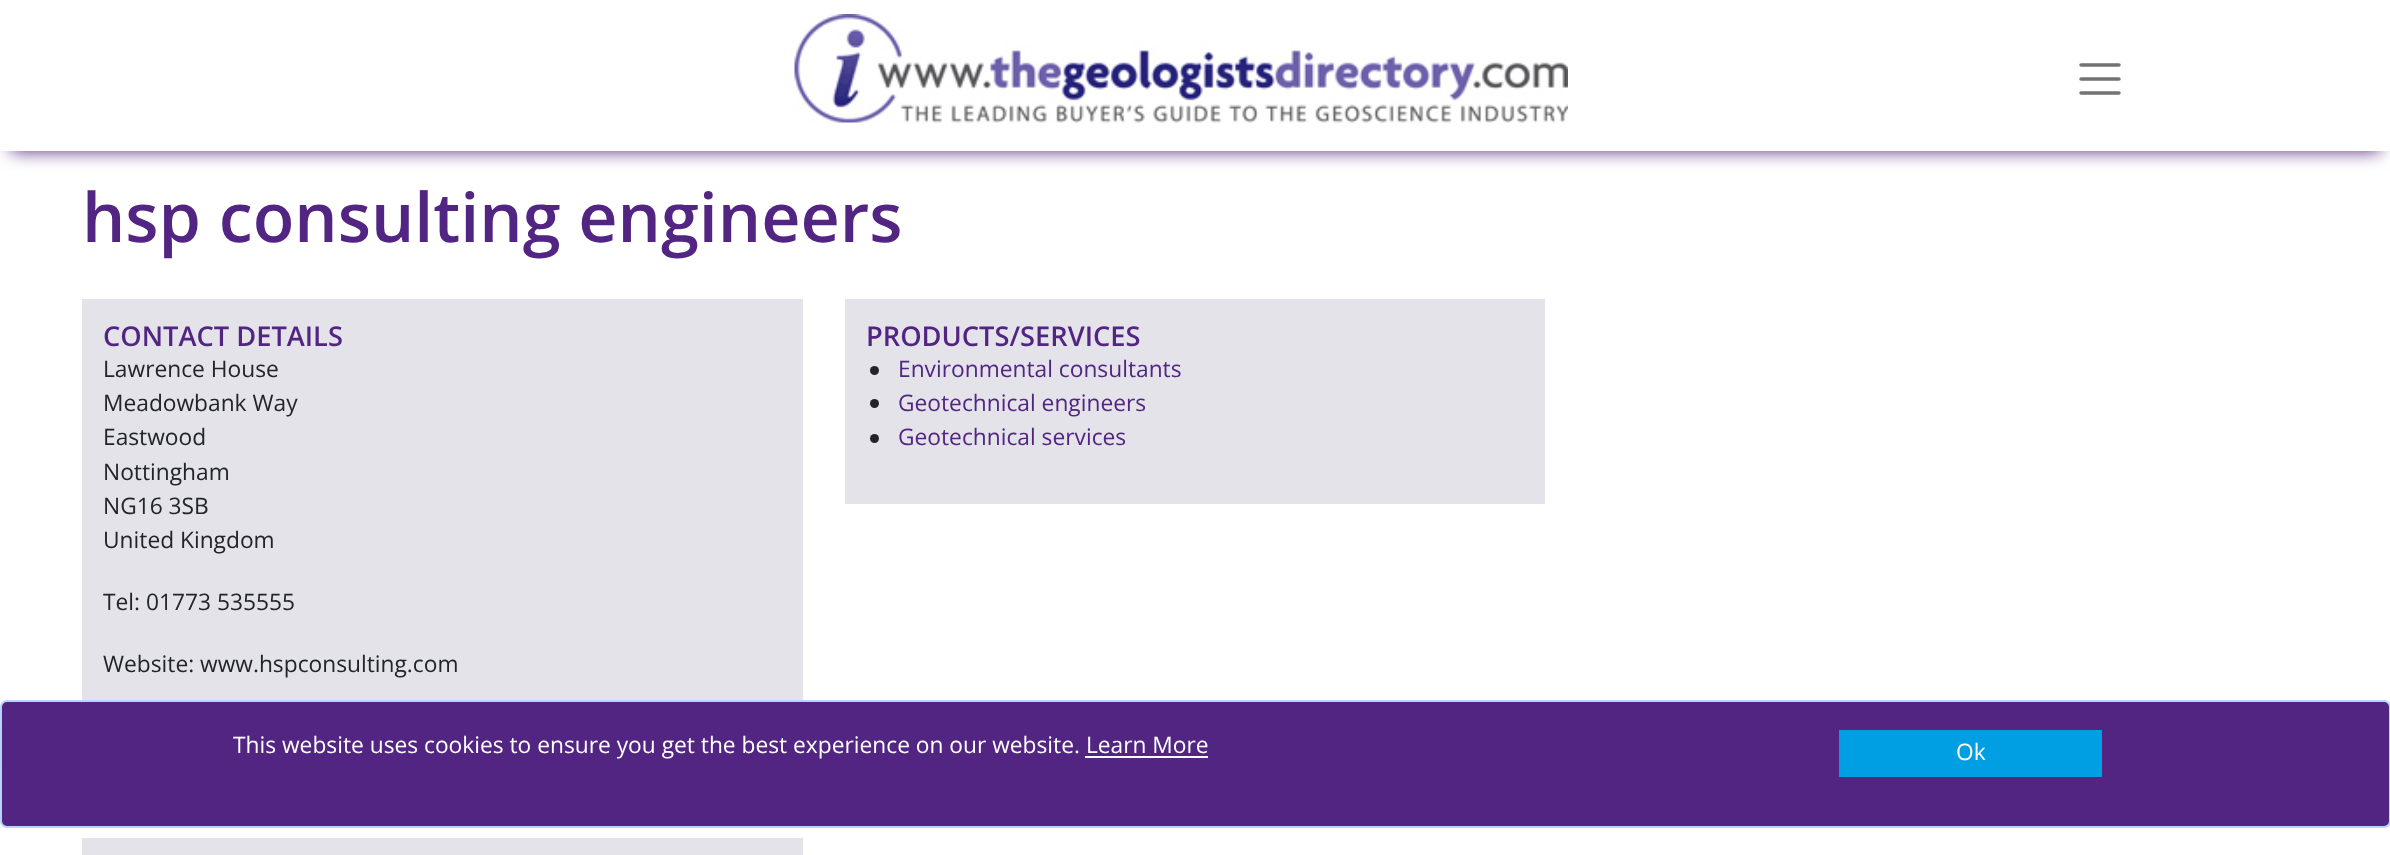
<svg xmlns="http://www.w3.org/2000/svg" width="2390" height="855">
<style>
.a{font:600 68.25px Open Sans;fill:#522583}
.b{font:600 27.25px Open Sans;fill:#522583}
.c{font:22.75px Open Sans;fill:#212529}
.d{font:22.75px Open Sans;fill:#522583}
.e{font:22.75px Open Sans;fill:#fff}
</style>
<rect width="100%" height="100%" fill="#fff"/>
<path fill="#522583" filter="blur(9px)" d="M11 21h2369v130H11z"/>
<path fill="#fff" d="M0 1h2390v150H0z"/>
<image href="1.png" x="794" y="14" width="774" height="109"/>
<path fill="none" stroke="#737373" stroke-width="3.5" stroke-linecap="round" d="M2081 65h38m-38 14h38m-38 14h38"/>
<path fill="#e4e3e9" d="M82 299h721v401H82z"/>
<path fill="#e4e3e9" d="M82 838h721v17H82z"/>
<path fill="#e4e3e9" d="M845 299h700v205H845z"/>
<circle fill="#212529" cx="874.5" cy="370.5" r="4.5"/>
<circle fill="#212529" cx="874.5" cy="403.5" r="4.5"/>
<circle fill="#212529" cx="874.5" cy="438.5" r="4.5"/>
<rect fill="#522583" stroke="#b6d4fe" stroke-width="2" x="1" y="701" width="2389" height="126" rx="6"/>
<path fill="#fff" d="M1085 756h123v2H1085z"/>
<path fill="#009ee3" d="M1839 730h263v47H1839z"/>
<text class="a" x="82" y="242">hsp consulting engineers</text>
<text class="b" x="103" y="346">CONTACT DETAILS</text>
<text class="c" x="103" y="377">Lawrence House</text>
<text class="c" x="103" y="411">Meadowbank Way</text>
<text class="c" x="103" y="445">Eastwood</text>
<text class="c" x="103" y="480">Nottingham</text>
<text class="c" x="103" y="514">NG16 3SB</text>
<text class="c" x="103" y="548">United Kingdom</text>
<text class="c" x="103" y="610">Tel: 01773 535555</text>
<text class="c" x="103" y="672">Website: www.hspconsulting.com</text>
<text class="b" x="866" y="346">PRODUCTS/SERVICES</text>
<text class="d" x="898" y="377">Environmental consultants</text>
<text class="d" x="898" y="411">Geotechnical engineers</text>
<text class="d" x="898" y="445">Geotechnical services</text>
<text class="e" x="233" y="753">This website uses cookies to ensure you get the best experience on our website. Learn More</text>
<text class="e" x="1956" y="760">Ok</text>
</svg>
